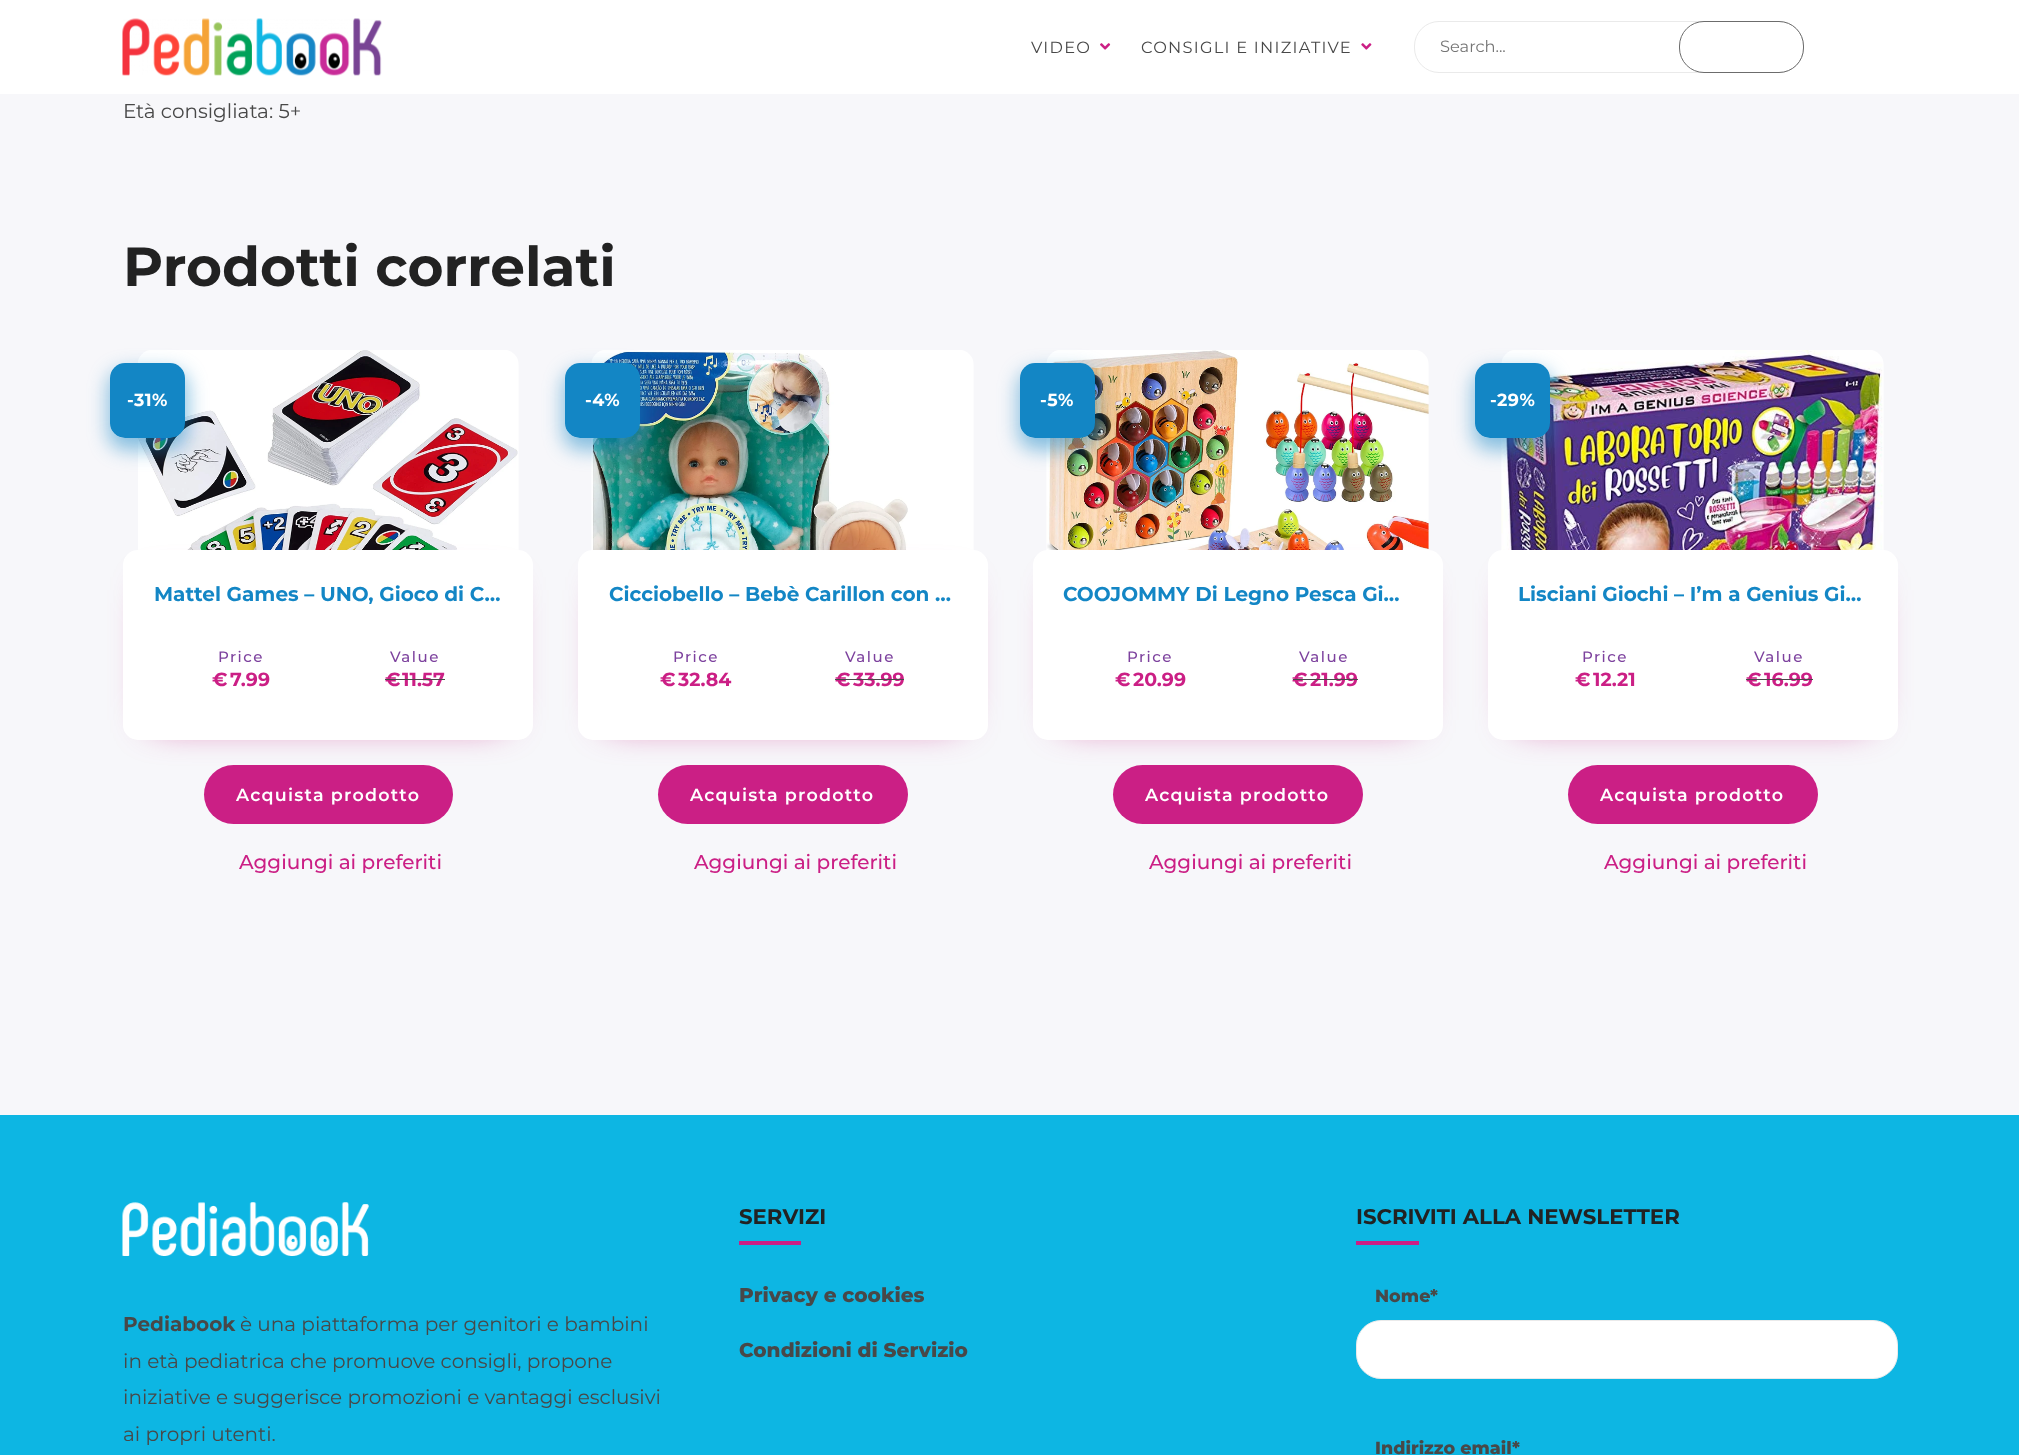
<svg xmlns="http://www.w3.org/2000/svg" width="2019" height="1455">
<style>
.a{font:16.25px Montserrat;letter-spacing:1.25px;fill:#484848}
.b{font:16.25px Montserrat;fill:#757575}
.c{font:20px Montserrat;fill:#484848}
.d{font:bold 55px Montserrat;fill:#222}
.e{font:bold 17.5px Montserrat;letter-spacing:0.5px;fill:#fff}
.f{font:bold 20px Montserrat;fill:#1386c5}
.g{font:500 15px Montserrat;letter-spacing:1.5px;fill:#7d429e}
.h{font:bold 19px Montserrat;fill:#cb1f85}
.i{font:600 17.5px Montserrat;letter-spacing:1.25px;fill:#fff}
.j{font:500 20px Montserrat;fill:#cb1f85}
.k{font:bold 20px Montserrat;fill:#484848}
.l{font:bold 21.25px Montserrat;fill:#222}
.m{font:800 20px Montserrat;fill:#484848}
.n{font:800 17.5px Montserrat;fill:#484848}
</style>
<defs>
<clipPath id="clip1"><path d="M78 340h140v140h-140zm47 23h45c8.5 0 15 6.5 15 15v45c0 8.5-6.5 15-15 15h-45c-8.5 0-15-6.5-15-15v-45c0-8.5 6.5-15 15-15z" clip-rule="evenodd"/></clipPath>
<clipPath id="clip2"><path d="M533 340h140v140h-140zm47 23h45c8.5 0 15 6.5 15 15v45c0 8.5-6.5 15-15 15h-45c-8.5 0-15-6.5-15-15v-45c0-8.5 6.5-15 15-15z" clip-rule="evenodd"/></clipPath>
<clipPath id="clip3"><path d="M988 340h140v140h-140zm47 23h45c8.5 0 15 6.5 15 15v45c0 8.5-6.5 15-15 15h-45c-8.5 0-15-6.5-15-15v-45c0-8.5 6.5-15 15-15z" clip-rule="evenodd"/></clipPath>
<clipPath id="clip4"><path d="M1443 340h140v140h-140zm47 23h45c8.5 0 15 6.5 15 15v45c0 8.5-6.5 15-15 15h-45c-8.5 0-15-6.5-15-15v-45c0-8.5 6.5-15 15-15z" clip-rule="evenodd"/></clipPath>
</defs>
<rect width="100%" height="100%" fill="#f7f7fa"/>
<path fill="#fff" d="M0 0h2019v94H0z"/>
<image href="1.png" x="122" y="18" width="260" height="58"/>
<image href="2.png" x="1100" y="43" width="11" height="7"/>
<image href="3.png" x="1361" y="43" width="11" height="7"/>
<rect fill="none" stroke="#eaeaea" x="1414.5" y="21.5" width="389" height="51" rx="24.5"/>
<rect fill="none" stroke="#6c6c6c" x="1679.5" y="21.5" width="124" height="51" rx="24.5"/>
<image href="4.png" x="138" y="350" width="381" height="201"/>
<rect fill="#1386c5" x="110" y="363" width="75" height="75" rx="15"/>
<g clip-path="url(#clip1)">
<rect fill="#1386c580" filter="blur(9.5px)" x="108" y="370" width="80" height="80" rx="18"/>
</g>
<path fill="#cb1f85" filter="blur(19px)" d="M153 590h350v130H153z"/>
<rect fill="#fff" x="123" y="550" width="410" height="190" rx="15"/>
<rect fill="#cb1f85" x="204" y="765" width="249" height="59" rx="29.5"/>
<image href="5.png" x="591" y="350" width="383" height="201"/>
<rect fill="#1386c5" x="565" y="363" width="75" height="75" rx="15"/>
<g clip-path="url(#clip2)">
<rect fill="#1386c580" filter="blur(9.5px)" x="563" y="370" width="80" height="80" rx="18"/>
</g>
<path fill="#cb1f85" filter="blur(19px)" d="M608 590h350v130H608z"/>
<rect fill="#fff" x="578" y="550" width="410" height="190" rx="15"/>
<rect fill="#cb1f85" x="658" y="765" width="250" height="59" rx="29.5"/>
<image href="6.png" x="1046" y="350" width="383" height="201"/>
<rect fill="#1386c5" x="1020" y="363" width="75" height="75" rx="15"/>
<g clip-path="url(#clip3)">
<rect fill="#1386c580" filter="blur(9.5px)" x="1018" y="370" width="80" height="80" rx="18"/>
</g>
<path fill="#cb1f85" filter="blur(19px)" d="M1063 590h350v130H1063z"/>
<rect fill="#fff" x="1033" y="550" width="410" height="190" rx="15"/>
<rect fill="#cb1f85" x="1113" y="765" width="250" height="59" rx="29.5"/>
<image href="7.png" x="1501" y="350" width="383" height="201"/>
<rect fill="#1386c5" x="1475" y="363" width="75" height="75" rx="15"/>
<g clip-path="url(#clip4)">
<rect fill="#1386c580" filter="blur(9.5px)" x="1473" y="370" width="80" height="80" rx="18"/>
</g>
<path fill="#cb1f85" filter="blur(19px)" d="M1518 590h350v130H1518z"/>
<rect fill="#fff" x="1488" y="550" width="410" height="190" rx="15"/>
<rect fill="#cb1f85" x="1568" y="765" width="250" height="59" rx="29.5"/>
<path fill="#0db6e3" d="M0 1115h2019v340H0z"/>
<image href="8.png" x="122" y="1202" width="247" height="54"/>
<path fill="#cb1f85" d="M739 1241h62v4H739z"/>
<path fill="#cb1f85" d="M1356 1241h63v4H1356z"/>
<rect fill="#fff" stroke="#eaeaea" x="1356.5" y="1320.5" width="541" height="58" rx="24.5"/>
<text class="a" x="1031" y="53">VIDEO</text>
<text class="a" x="1141" y="53">CONSIGLI E INIZIATIVE</text>
<text class="b" x="1440" y="52">Search...</text>
<text class="c" x="123" y="118">Età consigliata: 5+</text>
<text class="d" x="123" y="286">Prodotti correlati</text>
<text class="e" x="127" y="406">-31%</text>
<text class="f" x="154" y="601">Mattel Games – UNO, Gioco di C…</text>
<text class="g" x="218" y="662">Price</text>
<text class="h" x="212" y="686">€</text>
<text class="h" x="230" y="686">7.99</text>
<text class="g" x="390" y="662">Value</text>
<text class="h" x="385" y="686">€</text>
<text class="h" x="402" y="686">11.57</text>
<path fill="#484848" d="M385 679h60v1H385z"/>
<text class="i" x="236" y="801">Acquista prodotto</text>
<text class="j" x="239" y="869">Aggiungi ai preferiti</text>
<text class="e" x="585" y="406">-4%</text>
<text class="f" x="609" y="601">Cicciobello – Bebè Carillon con …</text>
<text class="g" x="673" y="662">Price</text>
<text class="h" x="660" y="686">€</text>
<text class="h" x="678" y="686">32.84</text>
<text class="g" x="845" y="662">Value</text>
<text class="h" x="835" y="686">€</text>
<text class="h" x="853" y="686">33.99</text>
<path fill="#484848" d="M835 679h69v1H835z"/>
<text class="i" x="690" y="801">Acquista prodotto</text>
<text class="j" x="694" y="869">Aggiungi ai preferiti</text>
<text class="e" x="1040" y="406">-5%</text>
<text class="f" x="1063" y="601">COOJOMMY Di Legno Pesca Gi…</text>
<text class="g" x="1127" y="662">Price</text>
<text class="h" x="1115" y="686">€</text>
<text class="h" x="1133" y="686">20.99</text>
<text class="g" x="1299" y="662">Value</text>
<text class="h" x="1292" y="686">€</text>
<text class="h" x="1310" y="686">21.99</text>
<path fill="#484848" d="M1293 679h65v1H1293z"/>
<text class="i" x="1145" y="801">Acquista prodotto</text>
<text class="j" x="1149" y="869">Aggiungi ai preferiti</text>
<text class="e" x="1490" y="406">-29%</text>
<text class="f" x="1518" y="601">Lisciani Giochi – I’m a Genius Gi…</text>
<text class="g" x="1582" y="662">Price</text>
<text class="h" x="1575" y="686">€</text>
<text class="h" x="1593" y="686">12.21</text>
<text class="g" x="1754" y="662">Value</text>
<text class="h" x="1746" y="686">€</text>
<text class="h" x="1764" y="686">16.99</text>
<path fill="#484848" d="M1746 679h67v1H1746z"/>
<text class="i" x="1600" y="801">Acquista prodotto</text>
<text class="j" x="1604" y="869">Aggiungi ai preferiti</text>
<text class="k" x="123" y="1331">Pediabook</text>
<text class="c" x="240" y="1331">è una piattaforma per genitori e bambini</text>
<text class="c" x="123" y="1368">in età pediatrica che promuove consigli, propone</text>
<text class="c" x="123" y="1404">iniziative e suggerisce promozioni e vantaggi esclusivi</text>
<text class="c" x="123" y="1441">ai propri utenti.</text>
<text class="l" x="739" y="1224">SERVIZI</text>
<text class="m" x="739" y="1302">Privacy e cookies</text>
<text class="m" x="739" y="1357">Condizioni di Servizio</text>
<text class="l" x="1356" y="1224">ISCRIVITI ALLA NEWSLETTER</text>
<text class="n" x="1375" y="1302">Nome*</text>
<text class="n" x="1375" y="1454">Indirizzo email*</text>
</svg>
